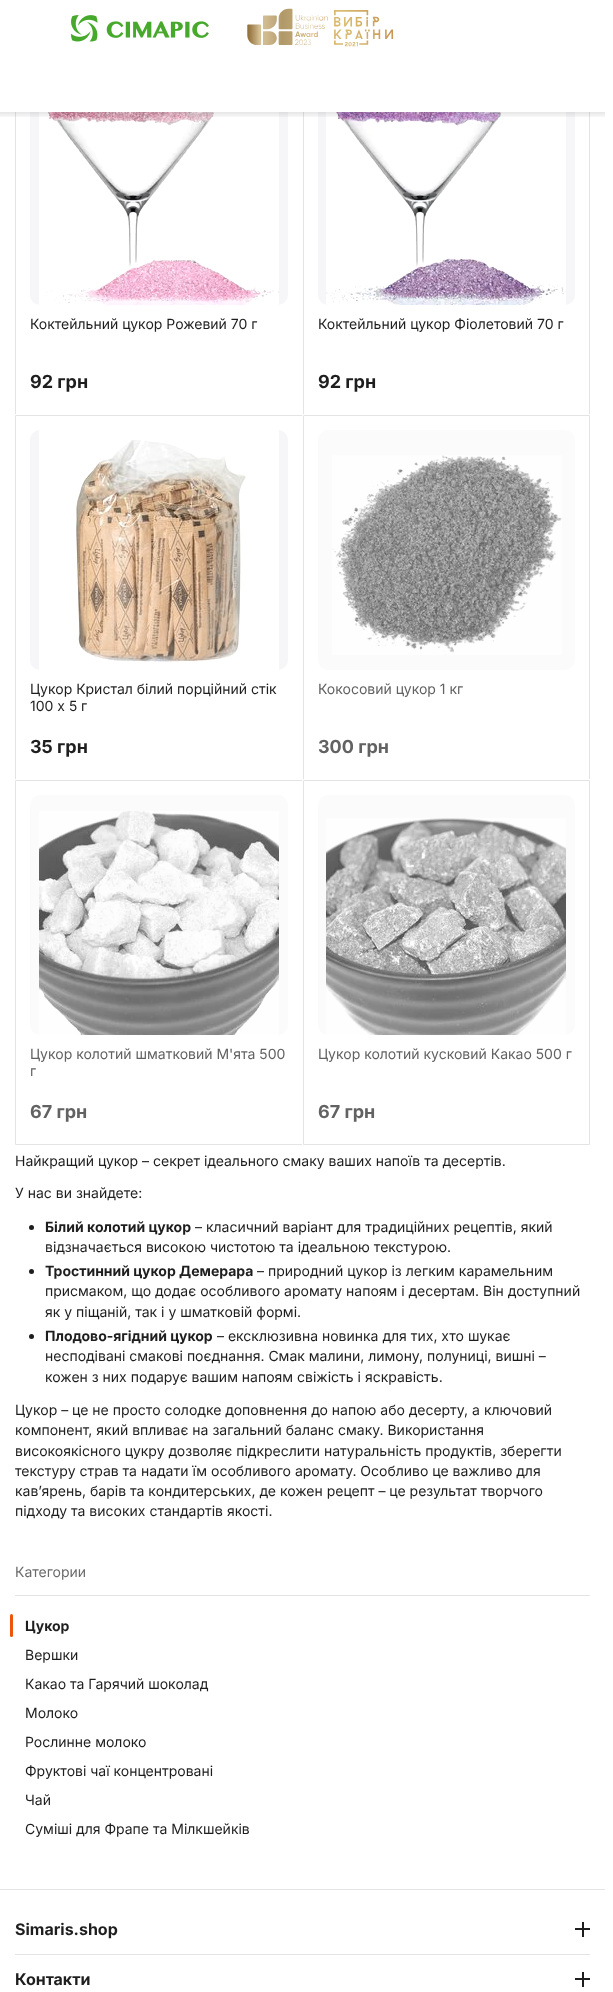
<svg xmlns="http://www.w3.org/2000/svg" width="613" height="1992">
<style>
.a{font:14px Inter;fill:#1e1e1e}
.b{font:bold 18px Inter;fill:#1e1e1e}
.c{font:14px Inter;fill:#626262}
.d{font:bold 18px Inter;fill:#626262}
.e{font:bold 14px Inter;fill:#1e1e1e}
.f{font:14px Inter;fill:#6b6b6b}
.g{font:bold 16px Inter;fill:#1e1e1e}
</style>
<defs>
<linearGradient id="g1" gradientUnits="userSpaceOnUse" x1="303" y1="112" x2="303" y2="119"><stop offset="0" stop-color="#000" stop-opacity="0.1"/><stop offset="1" stop-color="#000" stop-opacity="0"/></linearGradient>
</defs>
<rect width="100%" height="100%" fill="#fff"/>
<path fill="none" stroke="#e4e4e4" d="M15.5 50.5h287v364H15.5z"/>
<rect fill="#f6f6f8" x="30" y="65" width="258" height="240" rx="10"/>
<path fill="none" stroke="#fff" d="M302.5 49.5h288v366H302.5z"/>
<path fill="none" stroke="#e4e4e4" d="M303.5 50.5h286v364H303.5z"/>
<rect fill="#f6f6f8" x="318" y="65" width="257" height="240" rx="10"/>
<path fill="#fff" d="M15 50h575v62H15z"/>
<image href="1.png" x="71" y="15" width="138" height="27"/>
<image href="2.png" x="247" y="8" width="147" height="39"/>
<image href="3.png" x="39" y="112" width="240" height="193"/>
<image href="4.png" x="326" y="112" width="240" height="193"/>
<path fill="url(#g1)" d="M0 112h605v5H0z"/>
<path fill="none" stroke="#fff" d="M14.5 414.5h289v366H14.5z"/>
<path fill="none" stroke="#e4e4e4" d="M15.5 415.5h287v364H15.5z"/>
<rect fill="#f6f6f8" x="30" y="430" width="258" height="240" rx="10"/>
<image href="5.png" x="39" y="430" width="240" height="240"/>
<path fill="none" stroke="#fff" d="M302.5 414.5h288v366H302.5z"/>
<path fill="none" stroke="#e4e4e4" d="M303.5 415.5h286v364H303.5z"/>
<rect fill="#fbfbfb" x="318" y="430" width="257" height="240" rx="10"/>
<image href="6.png" x="332" y="455" width="230" height="200"/>
<path fill="none" stroke="#fff" d="M14.5 779.5h289v366H14.5z"/>
<path fill="none" stroke="#e4e4e4" d="M15.5 780.5h287v364H15.5z"/>
<rect fill="#fbfbfb" x="30" y="795" width="258" height="240" rx="10"/>
<image href="7.png" x="39" y="811" width="240" height="224"/>
<path fill="none" stroke="#fff" d="M302.5 779.5h288v366H302.5z"/>
<path fill="none" stroke="#e4e4e4" d="M303.5 780.5h286v364H303.5z"/>
<rect fill="#fbfbfb" x="318" y="795" width="257" height="240" rx="10"/>
<image href="8.png" x="326" y="818" width="240" height="217"/>
<circle fill="#1e1e1e" cx="31.5" cy="1227.5" r="2.5"/>
<circle fill="#1e1e1e" cx="31.5" cy="1271.5" r="2.5"/>
<circle fill="#1e1e1e" cx="31.5" cy="1336.5" r="2.5"/>
<path fill="#e4e4e4" d="M15 1595h575v1H15z"/>
<rect fill="#eb560c" x="10" y="1614" width="3" height="23" rx="1.5"/>
<path fill="#e4e4e4" d="M0 1889h605v1H0z"/>
<path fill="#e4e4e4" d="M15 1954h575v1H15z"/>
<path fill="#1e1e1e" d="M582 1922h2v15H582z"/>
<path fill="#1e1e1e" d="M575 1928h15v2H575z"/>
<path fill="#1e1e1e" d="M582 1972h2v15H582z"/>
<path fill="#1e1e1e" d="M575 1978h15v2H575z"/>
<text class="a" x="30" y="329">Коктейльний цукор Рожевий 70 г</text>
<text class="b" x="30" y="388">92 грн</text>
<text class="a" x="318" y="329">Коктейльний цукор Фіолетовий 70 г</text>
<text class="b" x="318" y="388">92 грн</text>
<text class="a" x="30" y="694">Цукор Кристал білий порційний стік</text>
<text class="a" x="30" y="711">100 х 5 г</text>
<text class="b" x="30" y="753">35 грн</text>
<text class="c" x="318" y="694">Кокосовий цукор 1 кг</text>
<text class="d" x="318" y="753">300 грн</text>
<text class="c" x="30" y="1059">Цукор колотий шматковий М'ята 500</text>
<text class="c" x="30" y="1076">г</text>
<text class="d" x="30" y="1118">67 грн</text>
<text class="c" x="318" y="1059">Цукор колотий кусковий Какао 500 г</text>
<text class="d" x="318" y="1118">67 грн</text>
<text class="a" x="15" y="1166">Найкращий цукор – секрет ідеального смаку ваших напоїв та десертів.</text>
<text class="a" x="15" y="1198">У нас ви знайдете:</text>
<text class="e" x="45" y="1232">Білий колотий цукор</text>
<text class="a" x="195" y="1232">– класичний варіант для традиційних рецептів, який</text>
<text class="a" x="45" y="1252">відзначається високою чистотою та ідеальною текстурою.</text>
<text class="e" x="45" y="1276">Тростинний цукор Демерара</text>
<text class="a" x="257" y="1276">– природний цукор із легким карамельним</text>
<text class="a" x="45" y="1296">присмаком, що додає особливого аромату напоям і десертам. Він доступний</text>
<text class="a" x="45" y="1317">як у піщаній, так і у шматковій формі.</text>
<text class="e" x="45" y="1341">Плодово-ягідний цукор</text>
<text class="a" x="217" y="1341">– ексклюзивна новинка для тих, хто шукає</text>
<text class="a" x="45" y="1361">несподівані смакові поєднання. Смак малини, лимону, полуниці, вишні –</text>
<text class="a" x="45" y="1382">кожен з них подарує вашим напоям свіжість і яскравість.</text>
<text class="a" x="15" y="1415">Цукор – це не просто солодке доповнення до напою або десерту, а ключовий</text>
<text class="a" x="15" y="1435">компонент, який впливає на загальний баланс смаку. Використання</text>
<text class="a" x="15" y="1456">високоякісного цукру дозволяє підкреслити натуральність продуктів, зберегти</text>
<text class="a" x="15" y="1476">текстуру страв та надати їм особливого аромату. Особливо це важливо для</text>
<text class="a" x="15" y="1496">кав’ярень, барів та кондитерських, де кожен рецепт – це результат творчого</text>
<text class="a" x="15" y="1516">підходу та високих стандартів якості.</text>
<text class="f" x="15" y="1577">Категории</text>
<text class="e" x="25" y="1631">Цукор</text>
<text class="a" x="25" y="1660">Вершки</text>
<text class="a" x="25" y="1689">Какао та Гарячий шоколад</text>
<text class="a" x="25" y="1718">Молоко</text>
<text class="a" x="25" y="1747">Рослинне молоко</text>
<text class="a" x="25" y="1776">Фруктові чаї концентровані</text>
<text class="a" x="25" y="1805">Чай</text>
<text class="a" x="25" y="1834">Суміші для Фрапе та Мілкшейків</text>
<text class="g" x="15" y="1935">Simaris.shop</text>
<text class="g" x="15" y="1985">Контакти</text>
</svg>
